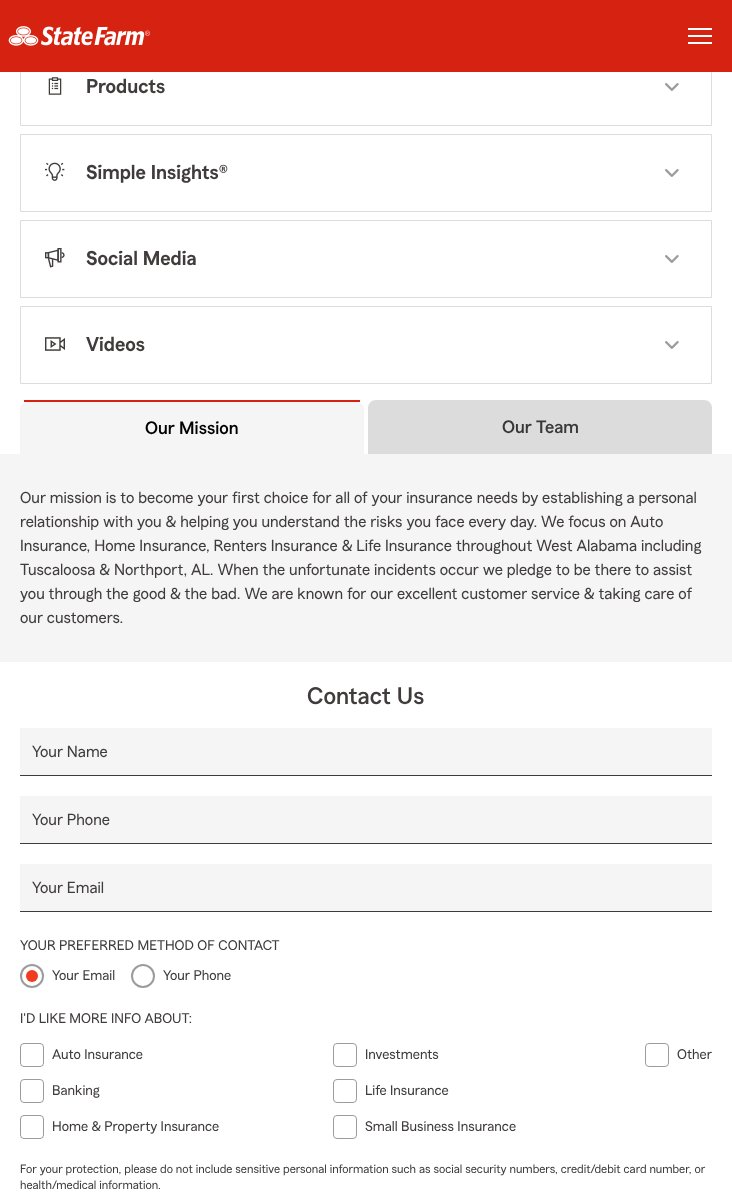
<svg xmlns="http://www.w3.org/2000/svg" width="732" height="1201">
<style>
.a{font:600 20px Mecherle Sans;fill:#403c3c}
.b{font:500 18px Mecherle Sans;fill:#000}
.c{font:500 18px Mecherle Sans;fill:#373737}
.d{font:16px Mecherle Sans;fill:#403c3c}
.e{font:500 24px Mecherle Sans;fill:#403c3c}
.f{font:14px Mecherle Sans;fill:#403c3c}
.g{font:12px Mecherle Sans;fill:#403c3c}
</style>
<rect width="100%" height="100%" fill="#fff"/>
<path fill="none" stroke="#dcdcdc" d="M20.5 48.5h691v77H20.5z"/>
<path fill="#d62311" d="M0 0h732v72H0z"/>
<image href="1.png" x="8" y="26" width="142" height="20"/>
<path fill="#fff" d="M688 28h24v2H688z"/>
<path fill="#fff" d="M688 35h24v2H688z"/>
<path fill="#fff" d="M688 42h24v2H688z"/>
<image href="2.png" x="48" y="77" width="14" height="18"/>
<image href="3.png" x="665" y="83" width="14" height="8"/>
<path fill="none" stroke="#dcdcdc" d="M20.5 134.5h691v77H20.5z"/>
<image href="4.png" x="45" y="162" width="20" height="19"/>
<image href="3.png" x="665" y="169" width="14" height="8"/>
<path fill="none" stroke="#dcdcdc" d="M20.5 220.5h691v77H20.5z"/>
<image href="5.png" x="45" y="248" width="20" height="20"/>
<image href="3.png" x="665" y="255" width="14" height="8"/>
<path fill="none" stroke="#dcdcdc" d="M20.5 306.5h691v77H20.5z"/>
<image href="6.png" x="45" y="337" width="20" height="14"/>
<image href="3.png" x="665" y="341" width="14" height="8"/>
<path fill="#f5f5f5" d="M28 402h328c4 0 8 3 8 6v54h-344v-54c0-3 4-6 8-6z"/>
<path fill="#d62311" d="M24 400h336v2H24z"/>
<path fill="#dcdcdc" d="M376 400h328c4.5 0 8 3.5 8 8v54h-344v-54c0-4.5 3.5-8 8-8z"/>
<path fill="#f5f5f5" d="M0 454h732v208H0z"/>
<path fill="#f5f5f5" d="M20 728h692v47H20z"/>
<path fill="#403c3c" d="M20 775h692v1H20z"/>
<path fill="#f5f5f5" d="M20 796h692v47H20z"/>
<path fill="#403c3c" d="M20 843h692v1H20z"/>
<path fill="#f5f5f5" d="M20 864h692v47H20z"/>
<path fill="#403c3c" d="M20 911h692v1H20z"/>
<circle fill="#f23c20" cx="32" cy="976" r="6"/>
<circle fill="none" stroke="#9c9c9c" stroke-width="2" cx="32" cy="976" r="11"/>
<circle fill="none" stroke="#9c9c9c" stroke-width="2" cx="143" cy="976" r="11"/>
<rect fill="none" stroke="#9c9c9c" x="20.5" y="1043.5" width="23" height="23" rx="3.5"/>
<rect fill="none" stroke="#9c9c9c" x="333.5" y="1043.5" width="23" height="23" rx="3.5"/>
<rect fill="none" stroke="#9c9c9c" x="645.5" y="1043.5" width="23" height="23" rx="3.5"/>
<rect fill="none" stroke="#9c9c9c" x="20.5" y="1079.5" width="23" height="23" rx="3.5"/>
<rect fill="none" stroke="#9c9c9c" x="333.5" y="1079.5" width="23" height="23" rx="3.5"/>
<rect fill="none" stroke="#9c9c9c" x="20.5" y="1115.5" width="23" height="23" rx="3.5"/>
<rect fill="none" stroke="#9c9c9c" x="333.5" y="1115.5" width="23" height="23" rx="3.5"/>
<text class="a" x="86" y="93">Products</text>
<text class="a" x="86" y="179">Simple Insights®</text>
<text class="a" x="86" y="265">Social Media</text>
<text class="a" x="86" y="351">Videos</text>
<text class="b" x="145" y="434">Our Mission</text>
<text class="c" x="502" y="433">Our Team</text>
<text class="d" x="20" y="503">Our mission is to become your first choice for all of your insurance needs by establishing a personal</text>
<text class="d" x="20" y="527">relationship with you &amp; helping you understand the risks you face every day. We focus on Auto</text>
<text class="d" x="20" y="551">Insurance, Home Insurance, Renters Insurance &amp; Life Insurance throughout West Alabama including</text>
<text class="d" x="20" y="575">Tuscaloosa &amp; Northport, AL. When the unfortunate incidents occur we pledge to be there to assist</text>
<text class="d" x="20" y="599">you through the good &amp; the bad. We are known for our excellent customer service &amp; taking care of</text>
<text class="d" x="20" y="623">our customers.</text>
<text class="e" x="307" y="704">Contact Us</text>
<text class="d" x="32" y="757">Your Name</text>
<text class="d" x="32" y="825">Your Phone</text>
<text class="d" x="32" y="893">Your Email</text>
<text class="f" x="20" y="950">YOUR PREFERRED METHOD OF CONTACT</text>
<text class="f" x="52" y="980">Your Email</text>
<text class="f" x="163" y="980">Your Phone</text>
<text class="f" x="20" y="1023">I'D LIKE MORE INFO ABOUT:</text>
<text class="f" x="52" y="1059">Auto Insurance</text>
<text class="f" x="365" y="1059">Investments</text>
<text class="f" x="677" y="1059">Other</text>
<text class="f" x="52" y="1095">Banking</text>
<text class="f" x="365" y="1095">Life Insurance</text>
<text class="f" x="52" y="1131">Home &amp; Property Insurance</text>
<text class="f" x="365" y="1131">Small Business Insurance</text>
<text class="g" x="20" y="1173">For your protection, please do not include sensitive personal information such as social security numbers, credit/debit card number, or</text>
<text class="g" x="20" y="1189">health/medical information.</text>
</svg>
